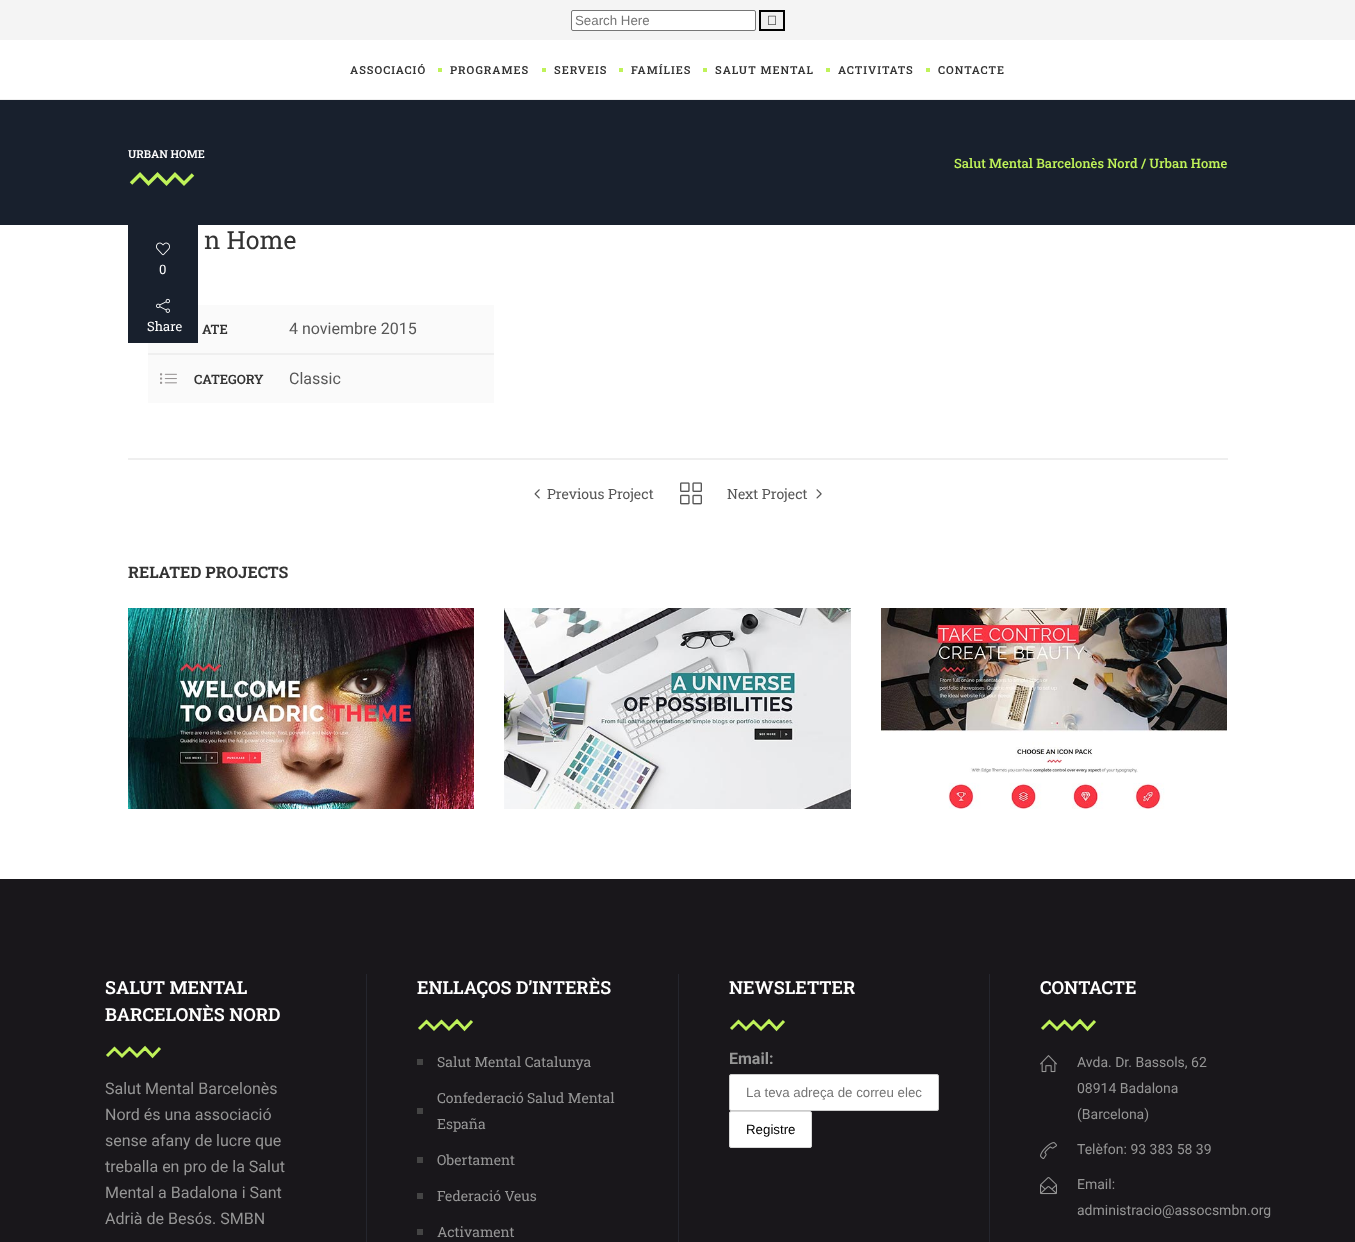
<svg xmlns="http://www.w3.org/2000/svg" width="1355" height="1242">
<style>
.a{font:13.3px Liberation Sans;fill:#757575}
.b{font:600 11px Roboto Slab;letter-spacing:1px;fill:#333}
.c{font:600 11px Roboto Slab;fill:#fff}
.d{font:500 13px Roboto Slab;fill:#bff259}
.e{font:13px Roboto Slab;fill:#fff}
.f{font:25px Roboto Slab;fill:#333}
.g{font:600 13px Roboto Slab;fill:#333}
.h{font:16px Roboto;fill:#575757}
.i{font:14px Roboto Slab;fill:#575757}
.j{font:bold 16px Roboto Slab;fill:#333}
.k{font:600 18px Roboto Slab;fill:#fff}
.l{font:16px Roboto;fill:#969696}
.m{font:14px Roboto Slab;fill:#969696}
.n{font:bold 16px Roboto;fill:#969696}
.o{font:13.3px Liberation Sans;fill:#000}
.p{font:14px Roboto;fill:#969696}
</style>
<rect width="100%" height="100%" fill="#fff"/>
<path fill="#f4f4f4" d="M0 0h1355v40H0z"/>
<rect fill="#fff" stroke="#767676" x="571.5" y="10.5" width="184" height="20" rx="1.5"/>
<path fill="#efefef" stroke="#000" stroke-width="2" d="M760 11h24v19H760z"/>
<image href="1.png" x="768" y="15" width="8" height="10"/>
<path fill="#efefef" d="M0 99h1355v1H0z"/>
<path fill="#bff259" d="M438 68h4v4H438z"/>
<path fill="#bff259" d="M542 68h4v4H542z"/>
<path fill="#bff259" d="M619 68h4v4H619z"/>
<path fill="#bff259" d="M703 68h4v4H703z"/>
<path fill="#bff259" d="M826 68h4v4H826z"/>
<path fill="#bff259" d="M926 68h4v4H926z"/>
<path fill="#18202d" d="M0 100h1355v125H0z"/>
<path fill="none" stroke="#bff259" stroke-width="3.5" d="M131 183.5l9-9l8.5 9l9-9l9 9l8.5-9l9 9l9-9"/>
<path fill="#fafafa" d="M148 305h346v48H148z"/>
<path fill="#18202d" d="M128 225h70v118H128z"/>
<image href="2.png" x="156" y="242" width="14" height="14"/>
<image href="3.png" x="156" y="298" width="14" height="15"/>
<path fill="#efefef" d="M148 353h346v2H148z"/>
<path fill="#fafafa" d="M148 355h346v48H148z"/>
<image href="4.png" x="160" y="373" width="17" height="11"/>
<path fill="#efefef" d="M128 458h1100v2H128z"/>
<image href="5.png" x="534" y="489" width="6" height="10"/>
<image href="6.png" x="680" y="482" width="22" height="23"/>
<image href="7.png" x="816" y="489" width="6" height="10"/>
<image href="8.png" x="128" y="608" width="346" height="201"/>
<image href="9.png" x="504" y="608" width="347" height="201"/>
<image href="10.png" x="881" y="608" width="346" height="201"/>
<path fill="#19171b" d="M0 879h1355v363H0z"/>
<path fill="none" stroke="#bff259" stroke-width="3" d="M107 1056l7.5-7.5l7.5 7.5l7.5-7.5l7.5 7.5l8-8l7.5 8l7.5-8"/>
<path fill="#25262e" d="M366 974h1v268H366z"/>
<path fill="none" stroke="#bff259" stroke-width="3" d="M419 1029l7.5-7.5l7.5 7.5l7.5-7.5l7.5 7.5l8-8l7.5 8l7.5-8"/>
<path fill="#444" d="M417 1059h6v6H417z"/>
<path fill="#444" d="M417 1108h6v6H417z"/>
<path fill="#444" d="M417 1157h6v6H417z"/>
<path fill="#444" d="M417 1193h6v6H417z"/>
<path fill="#444" d="M417 1229h6v6H417z"/>
<path fill="#25262e" d="M678 974h1v268H678z"/>
<path fill="none" stroke="#bff259" stroke-width="3" d="M731 1029l7.5-7.5l7.5 7.5l7.5-7.5l7.5 7.5l8-8l7.5 8l7.5-8"/>
<rect fill="#fff" stroke="#ccc" x="729.5" y="1074.5" width="209" height="36" rx="1.5"/>
<rect fill="#fff" stroke="#d9d9d9" x="729.5" y="1111.5" width="82" height="36" rx="1.5"/>
<path fill="#25262e" d="M989 974h1v268H989z"/>
<path fill="none" stroke="#bff259" stroke-width="3" d="M1042 1029l7.5-7.5l7.5 7.5l7.5-7.5l7.5 7.5l8-8l7.5 8l7.5-8"/>
<image href="11.png" x="1040" y="1055" width="17" height="18"/>
<image href="12.png" x="1040" y="1142" width="17" height="18"/>
<image href="13.png" x="1040" y="1177" width="17" height="18"/>
<text class="a" x="575" y="25">Search Here</text>
<text class="b" x="350" y="74">ASSOCIACIÓ</text>
<text class="b" x="450" y="74">PROGRAMES</text>
<text class="b" x="554" y="74">SERVEIS</text>
<text class="b" x="631" y="74">FAMÍLIES</text>
<text class="b" x="715" y="74">SALUT MENTAL</text>
<text class="b" x="838" y="74">ACTIVITATS</text>
<text class="b" x="938" y="74">CONTACTE</text>
<text class="c" x="128" y="158">URBAN HOME</text>
<text class="d" x="954" y="168">Salut Mental Barcelonès Nord / Urban Home</text>
<text class="e" x="159" y="274">0</text>
<text class="e" x="147" y="331">Share</text>
<text class="f" x="204" y="249">n Home</text>
<text class="g" x="202" y="334">ATE</text>
<text class="h" x="289" y="334">4 noviembre 2015</text>
<text class="g" x="194" y="384">CATEGORY</text>
<text class="h" x="289" y="384">Classic</text>
<text class="i" x="547" y="499">Previous Project</text>
<text class="i" x="727" y="499">Next Project</text>
<text class="j" x="128" y="578">RELATED PROJECTS</text>
<text class="k" x="105" y="994">SALUT MENTAL</text>
<text class="k" x="105" y="1021">BARCELONÈS NORD</text>
<text class="l" x="105" y="1094">Salut Mental Barcelonès</text>
<text class="l" x="105" y="1120">Nord és una associació</text>
<text class="l" x="105" y="1146">sense afany de lucre que</text>
<text class="l" x="105" y="1172">treballa en pro de la Salut</text>
<text class="l" x="105" y="1198">Mental a Badalona i Sant</text>
<text class="l" x="105" y="1224">Adrià de Besós. SMBN</text>
<text class="k" x="417" y="994">ENLLAÇOS D’INTERÈS</text>
<text class="m" x="437" y="1067">Salut Mental Catalunya</text>
<text class="m" x="437" y="1103">Confederació Salud Mental</text>
<text class="m" x="437" y="1129">España</text>
<text class="m" x="437" y="1165">Obertament</text>
<text class="m" x="437" y="1201">Federació Veus</text>
<text class="m" x="437" y="1237">Activament</text>
<text class="k" x="729" y="994">NEWSLETTER</text>
<text class="n" x="729" y="1064">Email:</text>
<text class="a" x="746" y="1097">La teva adreça de correu elec</text>
<text class="o" x="746" y="1134">Registre</text>
<text class="k" x="1040" y="994">CONTACTE</text>
<text class="p" x="1077" y="1067">Avda. Dr. Bassols, 62</text>
<text class="p" x="1077" y="1093">08914 Badalona</text>
<text class="p" x="1077" y="1119">(Barcelona)</text>
<text class="p" x="1077" y="1154">Telèfon: 93 383 58 39</text>
<text class="p" x="1077" y="1189">Email:</text>
<text class="p" x="1077" y="1215">administracio@assocsmbn.org</text>
</svg>
